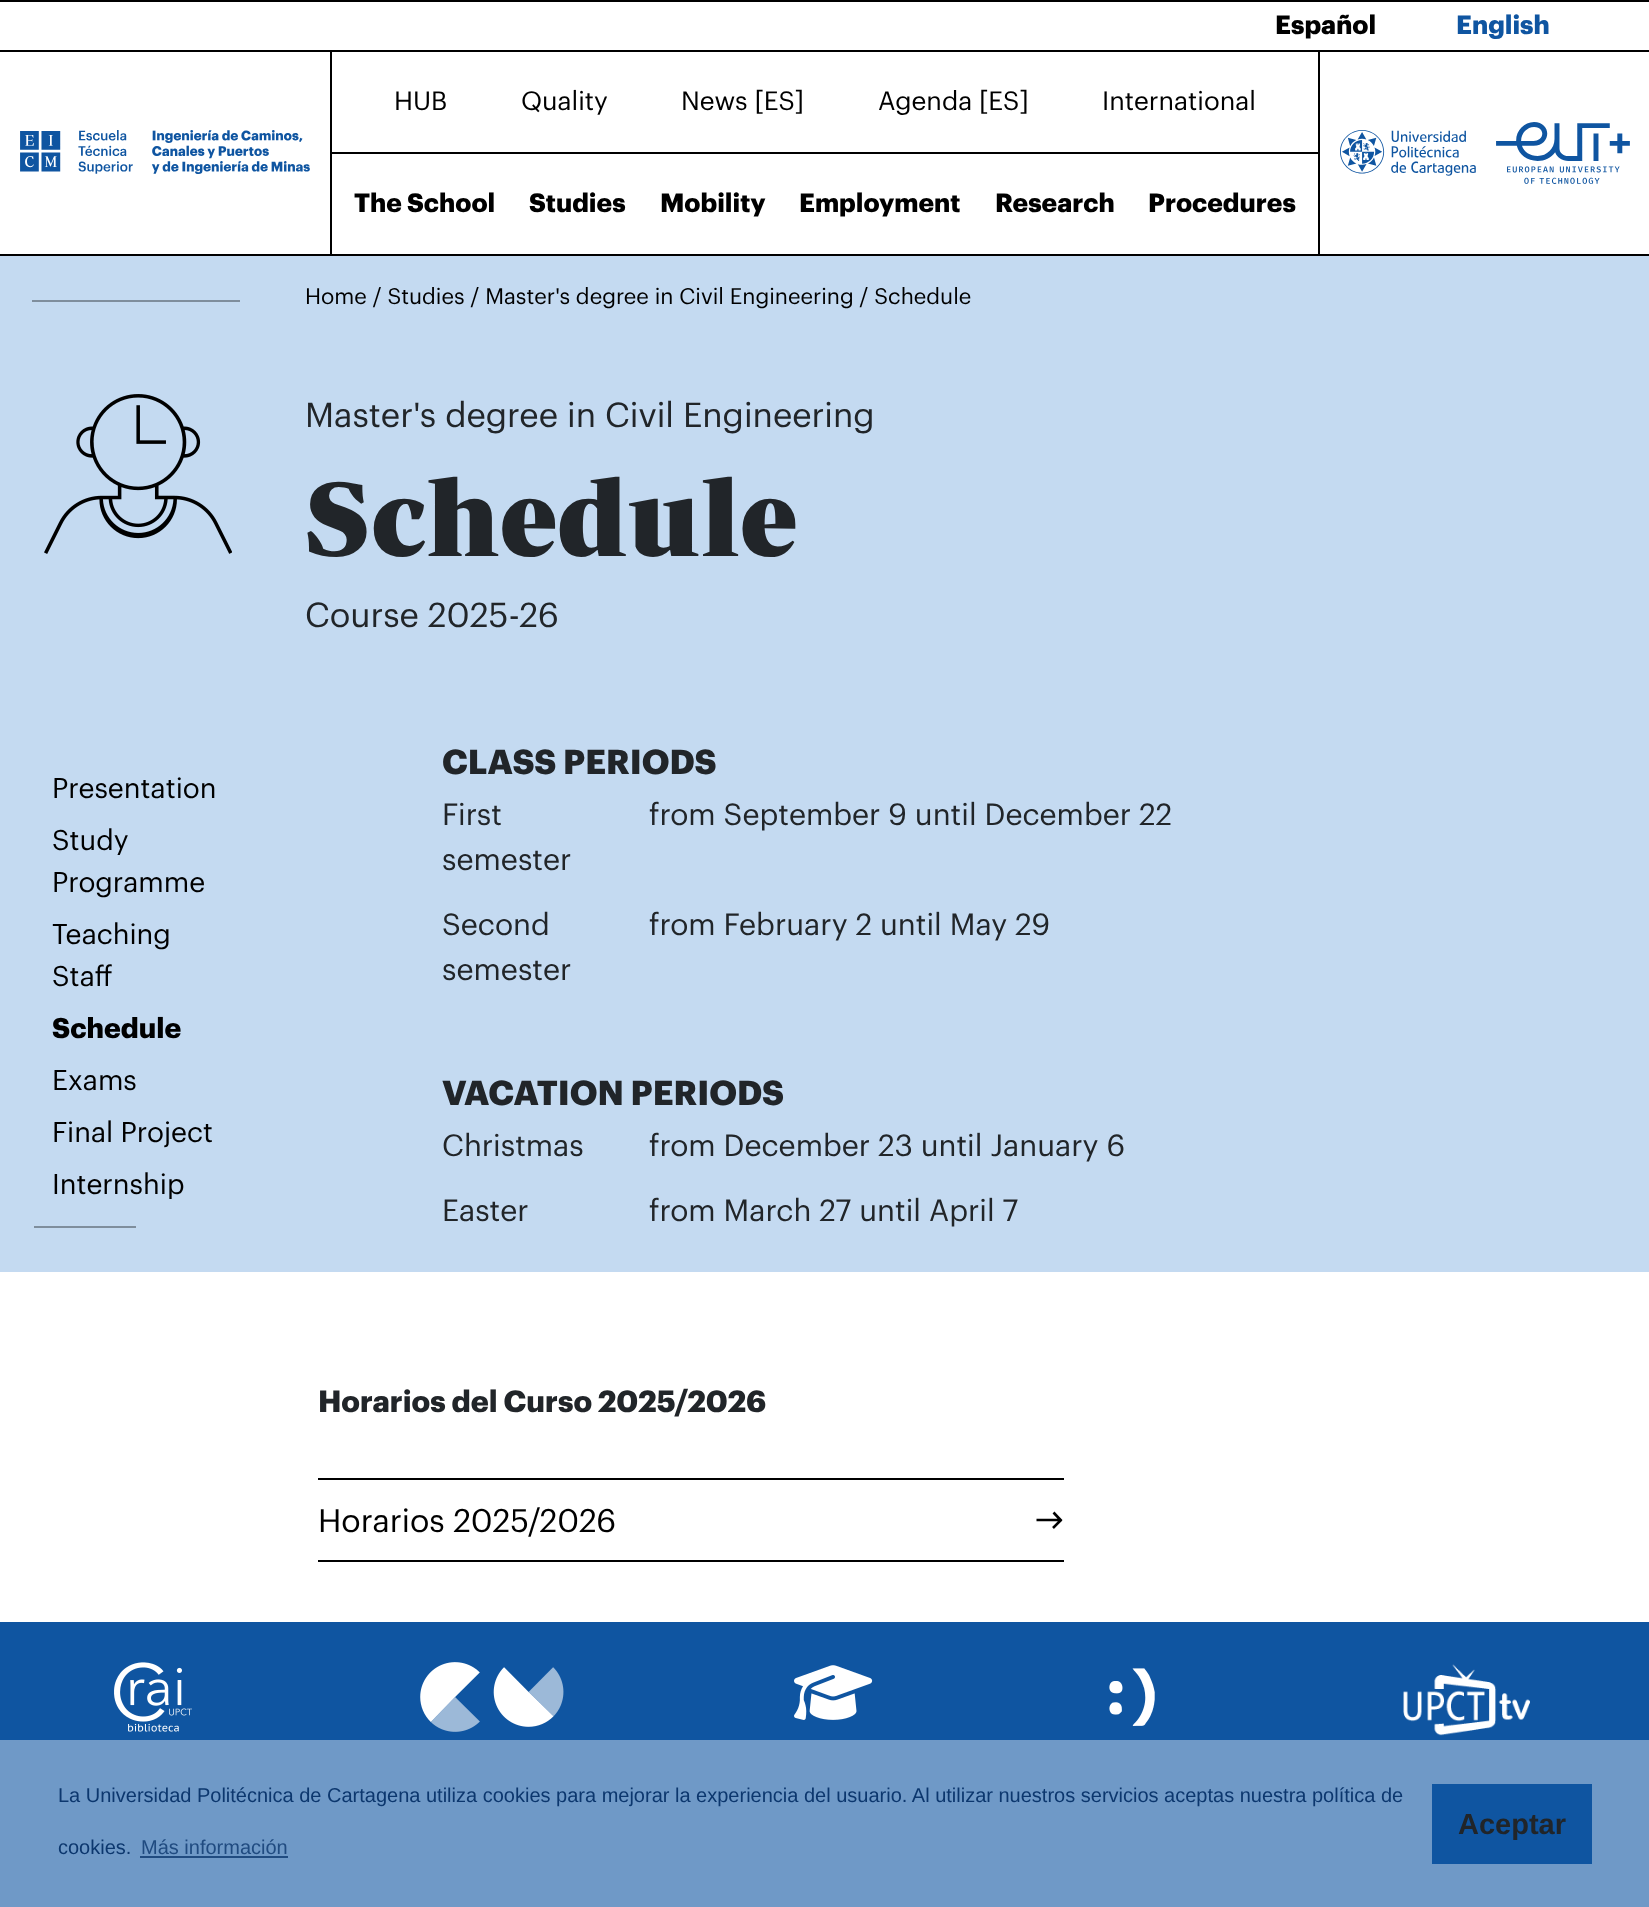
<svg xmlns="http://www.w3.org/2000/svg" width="1649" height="1907">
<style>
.a{font:bold 26px Graphik;fill:#000}
.b{font:bold 26px Graphik;fill:#0f55a1}
.c{font:26px Graphik;fill:#000}
.d{font:22px Graphik;fill:#000}
.e{font:34px Graphik;fill:#212529}
.f{font:800 108px 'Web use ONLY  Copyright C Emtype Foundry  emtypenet';fill:#212529}
.g{font:28px Graphik;fill:#000}
.h{font:bold 28px Graphik;fill:#000}
.i{font:bold 34px Graphik;fill:#212529}
.j{font:30px Graphik;fill:#212529}
.k{font:bold 30px Graphik;fill:#212529}
.l{font:32px Graphik;fill:#000}
.m{font:20px Liberation Sans;fill:#0c376e}
.n{font:20px Liberation Sans;fill:#204b80}
.o{font:bold 29px Liberation Sans;fill:#212529}
</style>
<rect width="100%" height="100%" fill="#fff"/>
<path fill="#000" d="M0 0h1649v2H0z"/>
<path fill="#000" d="M0 50h1649v2H0z"/>
<path fill="#000" d="M0 254h1649v2H0z"/>
<image href="1.png" x="20" y="130" width="290" height="44"/>
<path fill="#000" d="M1318 52h2v202H1318z"/>
<path fill="#000" d="M330 52h2v202H330z"/>
<path fill="#000" d="M332 152h986v2H332z"/>
<image href="2.png" x="1340" y="130" width="136" height="46"/>
<image href="3.png" x="1496" y="122" width="134" height="62"/>
<path fill="#c4daf1" d="M0 256h1649v1016H0z"/>
<path fill="#7f8e9d" d="M32 300h208v2H32z"/>
<image href="4.png" x="44" y="394" width="188" height="160"/>
<path fill="#7f8e9d" d="M34 1226h102v2H34z"/>
<path fill="#000" d="M318 1478h746v2H318z"/>
<path fill="#000" d="M318 1560h746v2H318z"/>
<path fill="none" stroke="#000" stroke-width="2.6" d="M1053 1528l8.5-8.5m-25 .5h22.5m-5.5-7.5l8 8.5"/>
<path fill="#0f55a1" d="M0 1622h1649v118H0z"/>
<image href="5.png" x="114" y="1662" width="78" height="70"/>
<image href="6.png" x="420" y="1662" width="144" height="70"/>
<image href="7.png" x="794" y="1665" width="79" height="55"/>
<image href="8.png" x="1109" y="1668" width="46" height="58"/>
<image href="9.png" x="1403" y="1664" width="127" height="72"/>
<path fill="#6f99c7" d="M0 1740h1649v167H0z"/>
<path fill="#204b80" d="M140 1856h148v2H140z"/>
<path fill="#0f55a1" d="M1432 1784h160v80H1432z"/>
<text class="a" x="1275" y="34">Español</text>
<text class="b" x="1456" y="34">English</text>
<text class="c" x="394" y="110">HUB</text>
<text class="c" x="521" y="110">Quality</text>
<text class="c" x="681" y="110">News [ES]</text>
<text class="c" x="878" y="110">Agenda [ES]</text>
<text class="c" x="1102" y="110">International</text>
<text class="a" x="354" y="212">The School</text>
<text class="a" x="529" y="212">Studies</text>
<text class="a" x="660" y="212">Mobility</text>
<text class="a" x="799" y="212">Employment</text>
<text class="a" x="995" y="212">Research</text>
<text class="a" x="1148" y="212">Procedures</text>
<text class="d" x="305" y="304">Home / Studies / Master's degree in Civil Engineering / Schedule</text>
<text class="e" x="305" y="427">Master's degree in Civil Engineering</text>
<text class="f" x="305" y="556">Schedule</text>
<text class="e" x="305" y="627">Course 2025-26</text>
<text class="g" x="52" y="798">Presentation</text>
<text class="g" x="52" y="850">Study</text>
<text class="g" x="52" y="892">Programme</text>
<text class="g" x="52" y="944">Teaching</text>
<text class="g" x="52" y="986">Staff</text>
<text class="h" x="52" y="1038">Schedule</text>
<text class="g" x="52" y="1090">Exams</text>
<text class="g" x="52" y="1142">Final Project</text>
<text class="g" x="52" y="1194">Internship</text>
<text class="i" x="442" y="774">CLASS PERIODS</text>
<text class="j" x="442" y="825">First</text>
<text class="j" x="442" y="870">semester</text>
<text class="j" x="649" y="825">from September 9 until December 22</text>
<text class="j" x="442" y="935">Second</text>
<text class="j" x="442" y="980">semester</text>
<text class="j" x="649" y="935">from February 2 until May 29</text>
<text class="i" x="442" y="1105">VACATION PERIODS</text>
<text class="j" x="442" y="1156">Christmas</text>
<text class="j" x="649" y="1156">from December 23 until January 6</text>
<text class="j" x="442" y="1221">Easter</text>
<text class="j" x="649" y="1221">from March 27 until April 7</text>
<text class="k" x="318" y="1412">Horarios del Curso 2025/2026</text>
<text class="l" x="318" y="1532">Horarios 2025/2026</text>
<text class="m" x="58" y="1802">La Universidad Politécnica de Cartagena utiliza cookies para mejorar la experiencia del usuario. Al utilizar nuestros servicios aceptas nuestra política de</text>
<text class="m" x="58" y="1854">cookies.</text>
<text class="n" x="141" y="1854">Más información</text>
<text class="o" x="1458" y="1834">Aceptar</text>
</svg>
